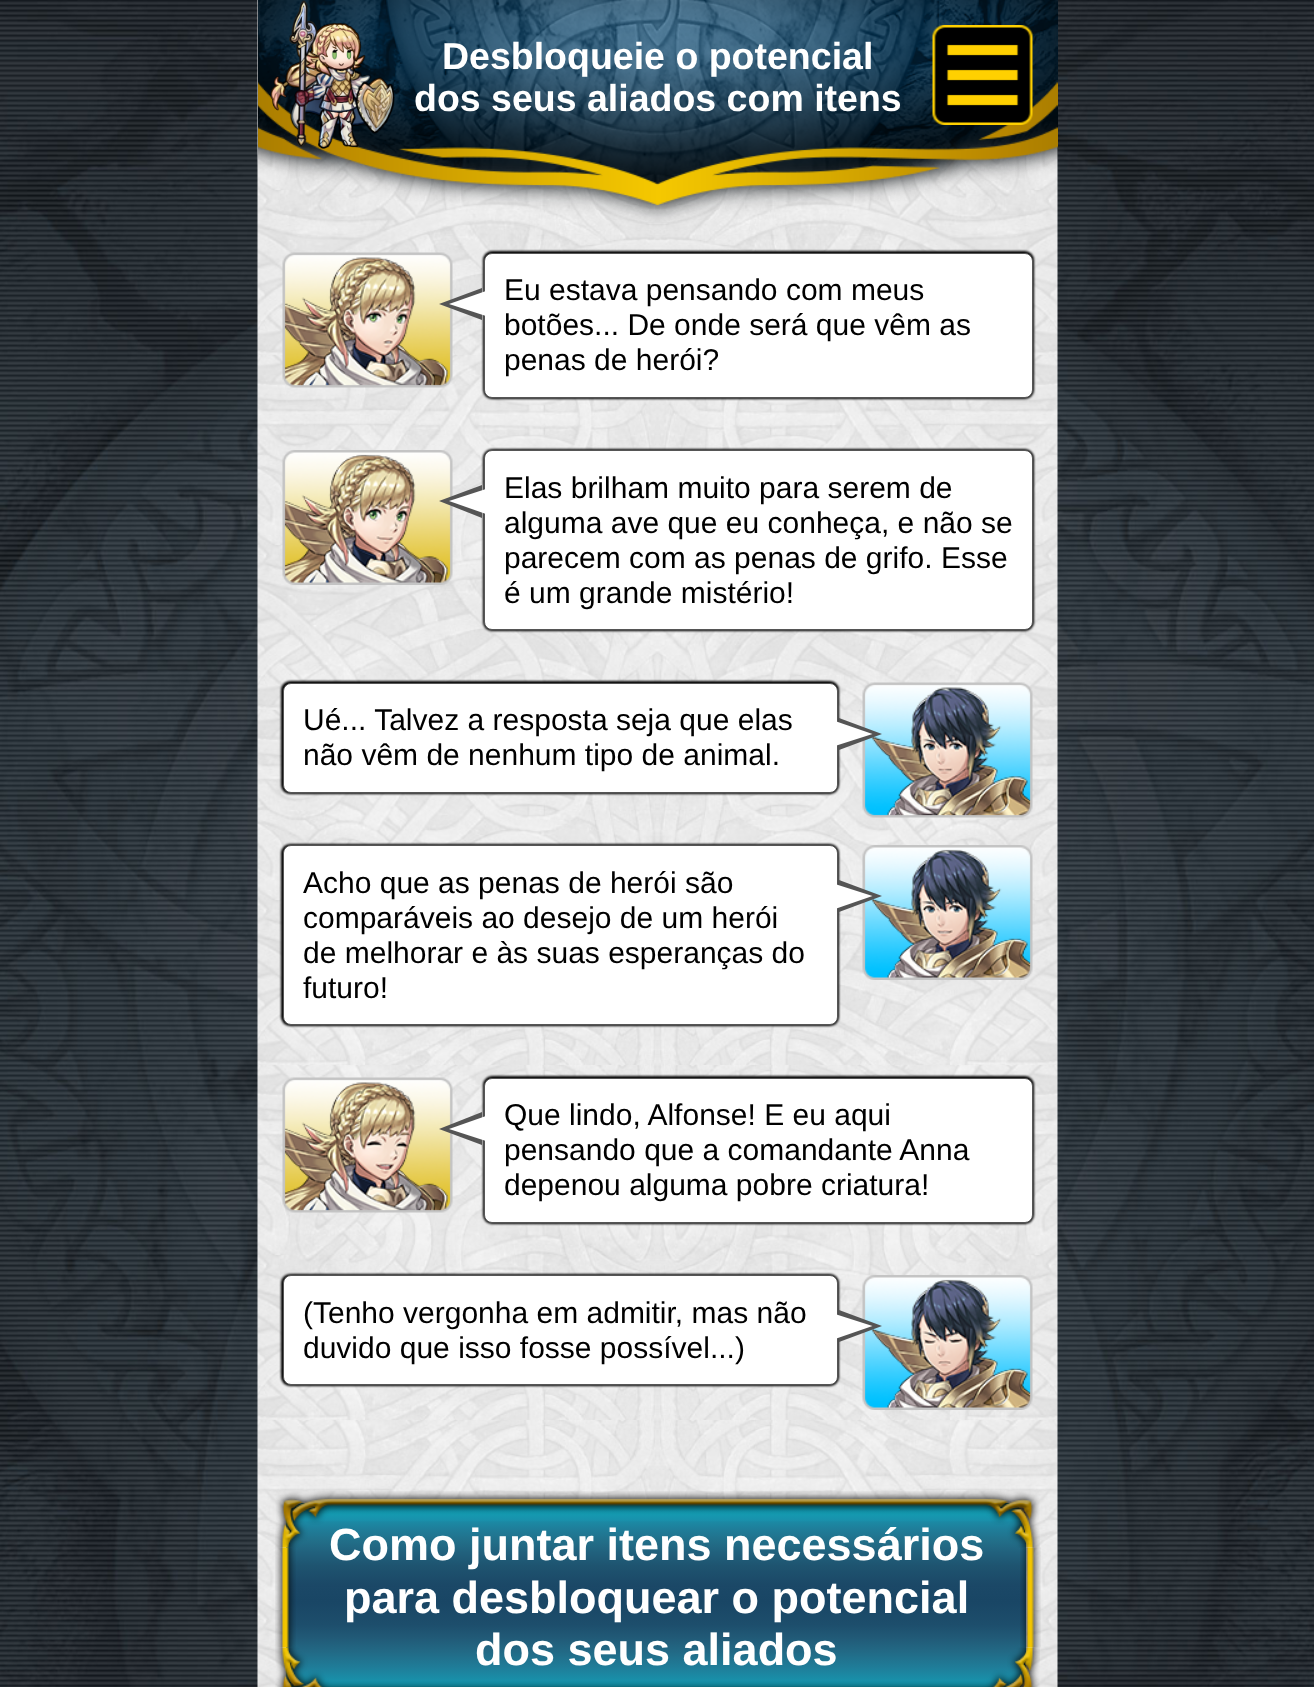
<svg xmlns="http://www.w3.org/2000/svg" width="1314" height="1687">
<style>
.a{font:bold 37.5px Liberation Sans;fill:#fff}
.b{font:30px Liberation Sans;fill:#000}
.c{font:bold 45px Liberation Sans;fill:#fff}
</style>
<defs>
<linearGradient id="g1" gradientUnits="userSpaceOnUse" x1="656" y1="1503" x2="656" y2="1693"><stop offset="0" stop-color="#067483"/><stop offset="0.01" stop-color="#098796"/><stop offset="0.03" stop-color="#0e90a6"/><stop offset="0.04" stop-color="#1296ad"/><stop offset="0.06" stop-color="#1599b0"/><stop offset="0.09" stop-color="#1991ac"/><stop offset="0.1" stop-color="#1b89a4"/><stop offset="0.14" stop-color="#1f7d99"/><stop offset="0.2" stop-color="#226f89"/><stop offset="0.26" stop-color="#21617d"/><stop offset="0.33" stop-color="#1e5470"/><stop offset="0.43" stop-color="#1b4867"/><stop offset="0.52" stop-color="#194665"/><stop offset="0.64" stop-color="#1d4e6c"/><stop offset="0.71" stop-color="#215a77"/><stop offset="0.78" stop-color="#226985"/><stop offset="0.87" stop-color="#1f7e9a"/><stop offset="0.93" stop-color="#198fa9"/><stop offset="0.96" stop-color="#1391a7"/><stop offset="0.97" stop-color="#118ba0"/><stop offset="0.99" stop-color="#0c8193"/><stop offset="1" stop-color="#0a7180"/></linearGradient>
</defs>
<rect width="100%" height="100%" fill="#fff"/>
<image href="1.png" x="0" y="0" width="1314" height="1687"/>
<image href="2.png" x="257" y="0" width="801" height="1687"/>
<image href="3.png" x="258" y="0" width="800" height="223"/>
<image href="4.png" x="270" y="0" width="125" height="149"/>
<image href="5.png" x="932" y="25" width="101" height="100"/>
<image href="6.png" x="282" y="252" width="171" height="136"/>
<rect fill="#000" filter="blur(1px)" x="483" y="251" width="551" height="148" rx="9"/>
<rect fill="#fff" stroke="#555" x="484.5" y="253.5" width="548" height="144" rx="7.5"/>
<path fill="#555" d="M482 288v32l-43-16z"/>
<path fill="#fff" d="M486 291v25l-37-12z"/>
<image href="7.png" x="282" y="450" width="171" height="135"/>
<rect fill="#000" filter="blur(1px)" x="483" y="449" width="551" height="182" rx="9"/>
<rect fill="#fff" stroke="#555" x="484.5" y="450.5" width="548" height="179" rx="7.5"/>
<path fill="#555" d="M482 485v33l-43-17z"/>
<path fill="#fff" d="M486 489v25l-37-13z"/>
<rect fill="#000" filter="blur(1px)" x="281" y="681" width="558" height="113" rx="9"/>
<rect fill="#fff" stroke="#555" x="283.5" y="683.5" width="554" height="109" rx="7.5"/>
<image href="8.png" x="862" y="682" width="171" height="136"/>
<path fill="#555" d="M839 750v-32l43 16z"/>
<path fill="#fff" d="M835 746v-25l37.5 13z"/>
<rect fill="#000" filter="blur(1px)" x="281" y="844" width="558" height="182" rx="9"/>
<rect fill="#fff" stroke="#555" x="283.5" y="845.5" width="554" height="179" rx="7.5"/>
<image href="9.png" x="862" y="845" width="171" height="135"/>
<path fill="#555" d="M839 912v-32l43 16z"/>
<path fill="#fff" d="M835 909v-25l37.5 12z"/>
<image href="10.png" x="282" y="1077" width="171" height="136"/>
<rect fill="#000" filter="blur(1px)" x="483" y="1076" width="551" height="148" rx="9"/>
<rect fill="#fff" stroke="#555" x="484.5" y="1078.5" width="548" height="144" rx="7.5"/>
<path fill="#555" d="M482 1112v33l-43-16z"/>
<path fill="#fff" d="M486 1116v25l-37-12z"/>
<rect fill="#000" filter="blur(1px)" x="281" y="1274" width="558" height="112" rx="9"/>
<rect fill="#fff" stroke="#555" x="283.5" y="1275.5" width="554" height="109" rx="7.5"/>
<image href="11.png" x="862" y="1275" width="171" height="135"/>
<path fill="#555" d="M839 1342v-32l43 16z"/>
<path fill="#fff" d="M835 1339v-25l37.5 12z"/>
<rect fill="url(#g1)" x="286" y="1503" width="740" height="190" rx="19"/>
<image href="13.png" x="275" y="1547" width="21" height="101"/>
<image href="14.png" x="1020" y="1547" width="21" height="101"/>
<text class="a" x="442" y="69">Desbloqueie o potencial</text>
<text class="a" x="414" y="111">dos seus aliados com itens</text>
<text class="b" x="504" y="300">Eu estava pensando com meus</text>
<text class="b" x="504" y="335">botões... De onde será que vêm as</text>
<text class="b" x="504" y="370">penas de herói?</text>
<text class="b" x="504" y="498">Elas brilham muito para serem de</text>
<text class="b" x="504" y="533">alguma ave que eu conheça, e não se</text>
<text class="b" x="504" y="568">parecem com as penas de grifo. Esse</text>
<text class="b" x="504" y="603">é um grande mistério!</text>
<text class="b" x="303" y="730">Ué... Talvez a resposta seja que elas</text>
<text class="b" x="303" y="765">não vêm de nenhum tipo de animal.</text>
<text class="b" x="303" y="893">Acho que as penas de herói são</text>
<text class="b" x="303" y="928">comparáveis ao desejo de um herói</text>
<text class="b" x="303" y="963">de melhorar e às suas esperanças do</text>
<text class="b" x="303" y="998">futuro!</text>
<text class="b" x="504" y="1125">Que lindo, Alfonse! E eu aqui</text>
<text class="b" x="504" y="1160">pensando que a comandante Anna</text>
<text class="b" x="504" y="1195">depenou alguma pobre criatura!</text>
<text class="b" x="303" y="1323">(Tenho vergonha em admitir, mas não</text>
<text class="b" x="303" y="1358">duvido que isso fosse possível...)</text>
<text class="c" x="329" y="1560">Como juntar itens necessários</text>
<image href="12.png" x="275" y="1491" width="765" height="57"/>
<text class="c" x="344" y="1613">para desbloquear o potencial</text>
<text class="c" x="475" y="1665">dos seus aliados</text>
<image href="15.png" x="275" y="1647" width="765" height="40"/>
</svg>
